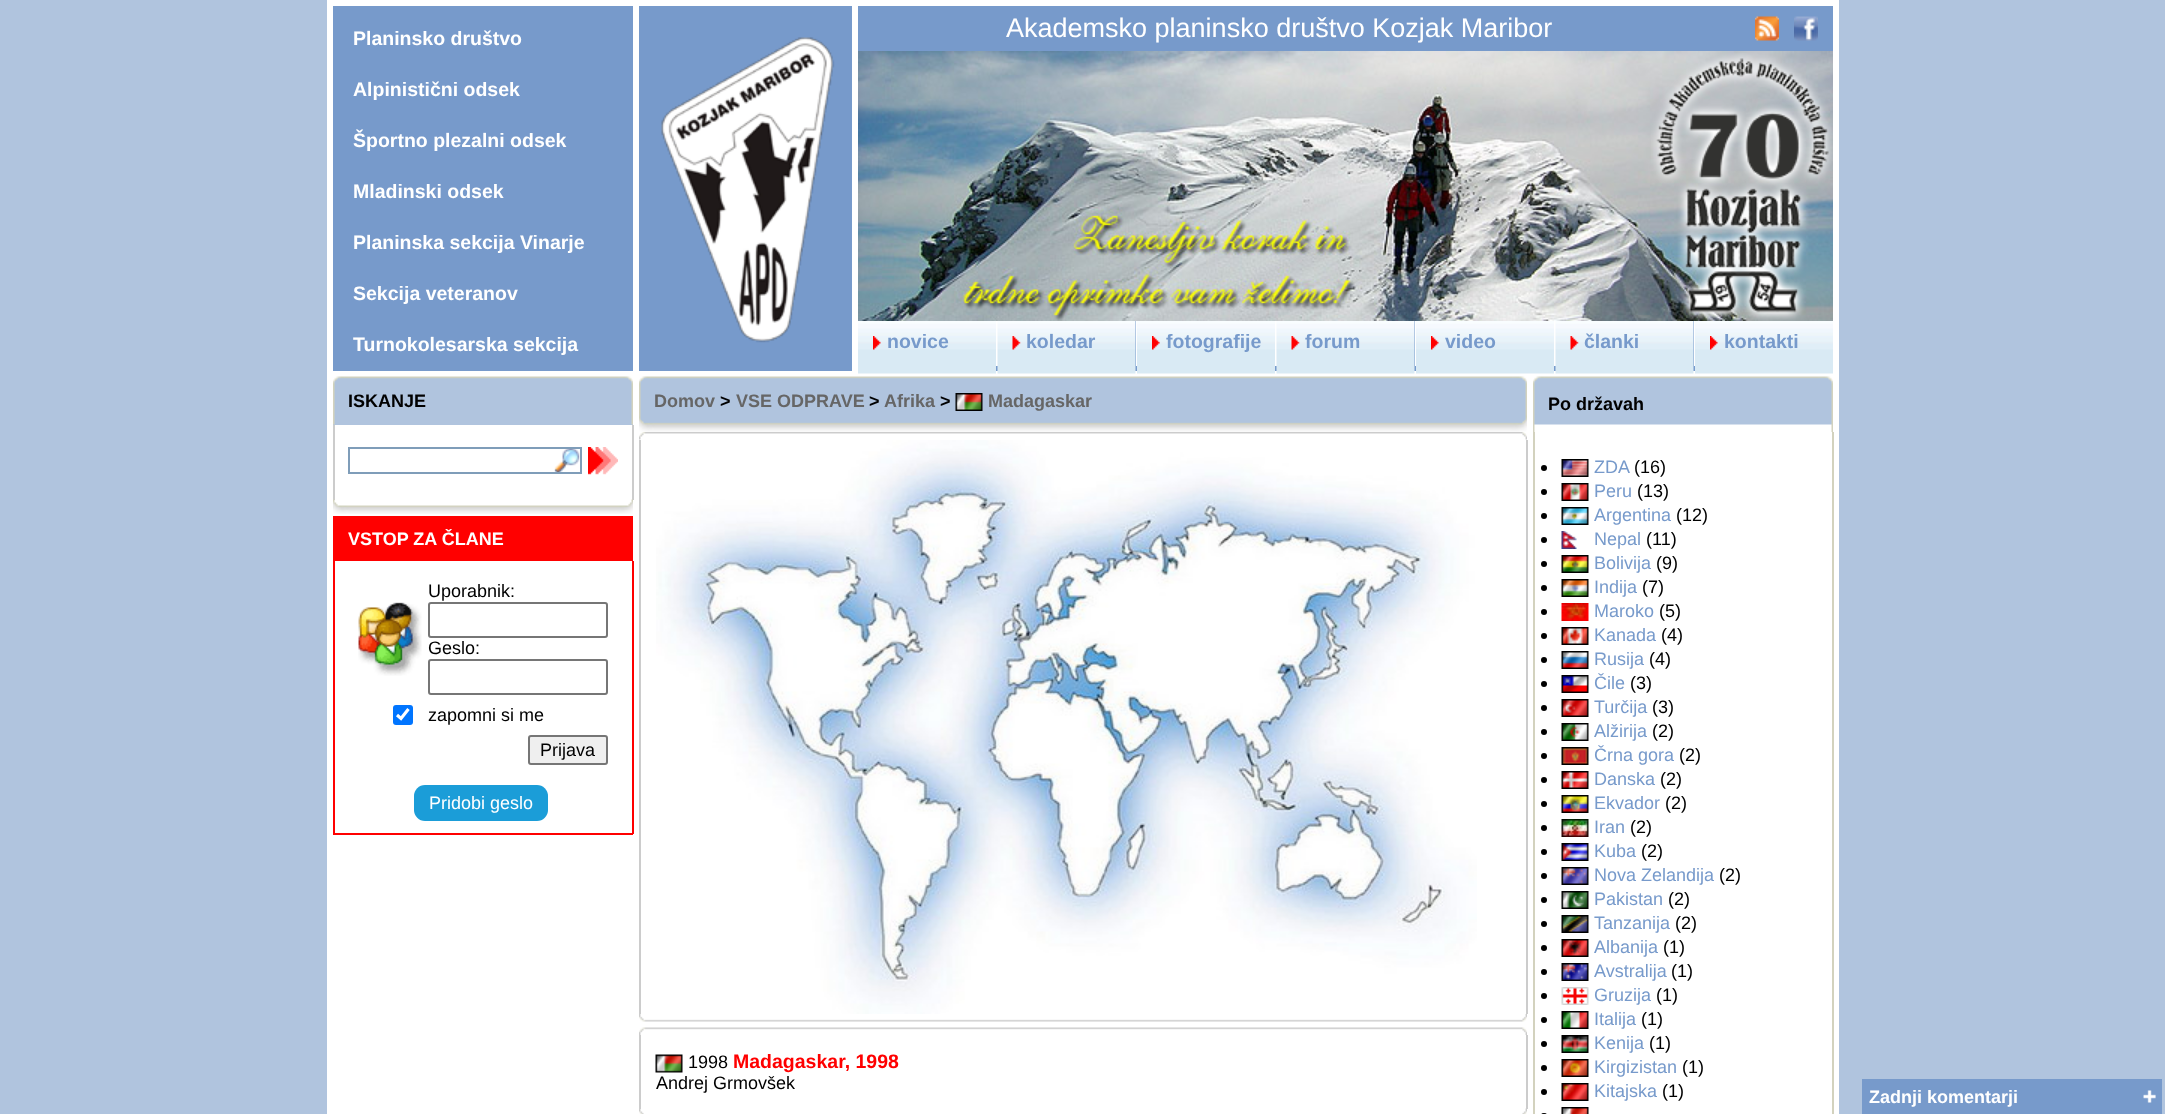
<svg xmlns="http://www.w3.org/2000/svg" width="2165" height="1114">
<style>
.a{font:bold 19.5px Liberation Sans;fill:#fff}
.b{font:27px Liberation Sans;fill:#fff}
.c{font:bold 19.5px Liberation Sans;fill:#779acb}
.d{font:bold 18px Liberation Sans;fill:#000}
.e{font:bold 18px Liberation Sans;fill:#fff}
.f{font:18px Liberation Sans;fill:#000}
.g{font:18px Liberation Sans;fill:#fff}
.h{font:bold 18px Liberation Sans;fill:#666}
.i{font:bold 19.5px Liberation Sans;fill:#f00}
.j{font:18px Liberation Sans;fill:#779acb}
</style>
<rect width="100%" height="100%" fill="#b0c4de"/>
<path fill="#fff" d="M327 0h1512v1114H327z"/>
<path fill="#779acb" d="M333 6h1500v365H333z"/>
<path fill="#fff" d="M633 6h6v365H633z"/>
<image href="1.png" x="661" y="37" width="174" height="306"/>
<path fill="#fff" d="M852 6h6v365H852z"/>
<image href="2.png" x="1755" y="16" width="24" height="25"/>
<image href="3.png" x="1794" y="16" width="24" height="25"/>
<image href="4.png" x="858" y="51" width="975" height="270"/>
<image href="5.png" x="1651" y="53" width="182" height="268"/>
<image href="6.png" x="858" y="321" width="138" height="53"/>
<image href="7.png" x="873" y="336" width="8" height="14"/>
<path fill="#fff" d="M996 321h2v45H996z"/>
<image href="8.png" x="997" y="321" width="139" height="53"/>
<image href="9.png" x="1012" y="336" width="9" height="14"/>
<path fill="#fff" d="M1136 321h1v45H1136z"/>
<image href="6.png" x="1137" y="321" width="138" height="53"/>
<image href="10.png" x="1152" y="336" width="8" height="14"/>
<path fill="#fff" d="M1275 321h2v45H1275z"/>
<image href="8.png" x="1276" y="321" width="139" height="53"/>
<image href="11.png" x="1291" y="336" width="9" height="14"/>
<path fill="#fff" d="M1415 321h1v45H1415z"/>
<image href="6.png" x="1416" y="321" width="138" height="53"/>
<image href="7.png" x="1431" y="336" width="8" height="14"/>
<path fill="#fff" d="M1554 321h2v45H1554z"/>
<image href="8.png" x="1555" y="321" width="139" height="53"/>
<image href="9.png" x="1570" y="336" width="9" height="14"/>
<path fill="#fff" d="M1694 321h1v45H1694z"/>
<image href="6.png" x="1695" y="321" width="138" height="53"/>
<image href="7.png" x="1710" y="336" width="8" height="14"/>
<path fill="#b0c4de" d="M333 377h300v48H333z"/>
<image href="12.png" x="333" y="376" width="300" height="49"/>
<path fill="#ccc" d="M632 425h2v75H632z"/>
<path fill="#ccc" d="M333 425h2v75H333z"/>
<image href="13.png" x="554" y="449" width="26" height="23"/>
<path fill="none" stroke="#7f9db9" stroke-width="2" d="M349 448h232v25H349z"/>
<image href="14.png" x="588" y="447" width="30" height="28"/>
<image href="15.png" x="333" y="499" width="300" height="15"/>
<path fill="#f00" d="M333 516h300v45H333z"/>
<path fill="#f00" d="M632 561h2v273H632z"/>
<path fill="#f00" d="M333 833h300v2H333z"/>
<path fill="#f00" d="M333 561h2v273H333z"/>
<image href="16.png" x="358" y="602" width="64" height="74"/>
<rect fill="none" stroke="#767676" stroke-width="2" x="429" y="603" width="178" height="34" rx="2"/>
<rect fill="none" stroke="#767676" stroke-width="2" x="429" y="660" width="178" height="34" rx="2"/>
<rect fill="#0075ff" x="393" y="705" width="20" height="20" rx="3"/>
<path fill="none" stroke="#fff" stroke-width="3.1" d="M397 715l4 3.5l7.5-9.5"/>
<rect fill="#efefef" stroke="#767676" stroke-width="2" x="529" y="736" width="78" height="28" rx="2"/>
<rect fill="#1b9dd8" x="414" y="785" width="134" height="36" rx="11"/>
<path fill="#b0c4de" d="M640 377h886v47H640z"/>
<image href="17.png" x="639" y="376" width="888" height="56"/>
<image href="18.png" x="955" y="393" width="28" height="18"/>
<path fill="#b0c4de" d="M1534 377h298v48H1534z"/>
<image href="19.png" x="1533" y="376" width="300" height="56"/>
<image href="20.png" x="639" y="432" width="888" height="8"/>
<path fill="#ccc" d="M1526 440h2v574H1526z"/>
<path fill="#ccc" d="M639 440h2v574H639z"/>
<image href="21.png" x="656" y="440" width="821" height="574"/>
<image href="22.png" x="639" y="1014" width="888" height="8"/>
<image href="23.png" x="639" y="1027" width="888" height="8"/>
<path fill="#ccc" d="M1526 1035h2v74H1526z"/>
<path fill="#ccc" d="M639 1035h2v74H639z"/>
<image href="24.png" x="655" y="1054" width="28" height="19"/>
<image href="25.png" x="639" y="1108" width="888" height="6"/>
<path fill="#d3d2be" d="M1832 432h2v682H1832z"/>
<path fill="#d3d2be" d="M1533 432h2v682H1533z"/>
<circle fill="#000" cx="1544" cy="468" r="3"/>
<image href="26.png" x="1561" y="459" width="28" height="18"/>
<circle fill="#000" cx="1544" cy="492" r="3"/>
<image href="27.png" x="1561" y="483" width="28" height="18"/>
<circle fill="#000" cx="1544" cy="516" r="3"/>
<image href="28.png" x="1561" y="507" width="28" height="18"/>
<circle fill="#000" cx="1544" cy="540" r="3"/>
<image href="29.png" x="1561" y="531" width="16" height="18"/>
<circle fill="#000" cx="1544" cy="564" r="3"/>
<image href="30.png" x="1561" y="555" width="28" height="18"/>
<circle fill="#000" cx="1544" cy="588" r="3"/>
<image href="31.png" x="1561" y="579" width="28" height="18"/>
<circle fill="#000" cx="1544" cy="612" r="3"/>
<image href="32.png" x="1561" y="603" width="28" height="18"/>
<circle fill="#000" cx="1544" cy="636" r="3"/>
<image href="33.png" x="1561" y="627" width="28" height="18"/>
<circle fill="#000" cx="1544" cy="660" r="3"/>
<image href="34.png" x="1561" y="651" width="28" height="18"/>
<circle fill="#000" cx="1544" cy="684" r="3"/>
<image href="35.png" x="1561" y="675" width="28" height="18"/>
<circle fill="#000" cx="1544" cy="708" r="3"/>
<image href="36.png" x="1561" y="699" width="28" height="18"/>
<circle fill="#000" cx="1544" cy="732" r="3"/>
<image href="37.png" x="1561" y="723" width="28" height="18"/>
<circle fill="#000" cx="1544" cy="756" r="3"/>
<image href="38.png" x="1561" y="747" width="28" height="18"/>
<circle fill="#000" cx="1544" cy="780" r="3"/>
<image href="39.png" x="1561" y="771" width="28" height="18"/>
<circle fill="#000" cx="1544" cy="804" r="3"/>
<image href="40.png" x="1561" y="795" width="28" height="18"/>
<circle fill="#000" cx="1544" cy="828" r="3"/>
<image href="41.png" x="1561" y="819" width="28" height="18"/>
<circle fill="#000" cx="1544" cy="852" r="3"/>
<image href="42.png" x="1561" y="843" width="28" height="18"/>
<circle fill="#000" cx="1544" cy="876" r="3"/>
<image href="43.png" x="1561" y="867" width="28" height="18"/>
<circle fill="#000" cx="1544" cy="900" r="3"/>
<image href="44.png" x="1561" y="891" width="28" height="18"/>
<circle fill="#000" cx="1544" cy="924" r="3"/>
<image href="45.png" x="1561" y="915" width="28" height="18"/>
<circle fill="#000" cx="1544" cy="948" r="3"/>
<image href="46.png" x="1561" y="939" width="28" height="18"/>
<circle fill="#000" cx="1544" cy="972" r="3"/>
<image href="47.png" x="1561" y="963" width="28" height="18"/>
<circle fill="#000" cx="1544" cy="996" r="3"/>
<image href="48.png" x="1561" y="987" width="28" height="18"/>
<circle fill="#000" cx="1544" cy="1020" r="3"/>
<image href="49.png" x="1561" y="1011" width="28" height="18"/>
<circle fill="#000" cx="1544" cy="1044" r="3"/>
<image href="50.png" x="1561" y="1035" width="28" height="18"/>
<circle fill="#000" cx="1544" cy="1068" r="3"/>
<image href="51.png" x="1561" y="1059" width="28" height="18"/>
<circle fill="#000" cx="1544" cy="1092" r="3"/>
<image href="52.png" x="1561" y="1083" width="28" height="18"/>
<image href="53.png" x="1561" y="1107" width="28" height="7"/>
<rect fill="#000" x="1541" y="1113" width="6" height="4" rx="3"/>
<path fill="#779acb" d="M1862 1079h300v35H1862z"/>
<image href="54.png" x="2143" y="1090" width="13" height="13"/>
<text class="a" x="353" y="45">Planinsko društvo</text>
<text class="a" x="353" y="96">Alpinistični odsek</text>
<text class="a" x="353" y="147">Športno plezalni odsek</text>
<text class="a" x="353" y="198">Mladinski odsek</text>
<text class="a" x="353" y="249">Planinska sekcija Vinarje</text>
<text class="a" x="353" y="300">Sekcija veteranov</text>
<text class="a" x="353" y="351">Turnokolesarska sekcija</text>
<text class="b" x="1006" y="37">Akademsko planinsko društvo Kozjak Maribor</text>
<text class="c" x="887" y="348">novice</text>
<text class="c" x="1026" y="348">koledar</text>
<text class="c" x="1166" y="348">fotografije</text>
<text class="c" x="1305" y="348">forum</text>
<text class="c" x="1445" y="348">video</text>
<text class="c" x="1584" y="348">članki</text>
<text class="c" x="1724" y="348">kontakti</text>
<text class="d" x="348" y="407">ISKANJE</text>
<text class="e" x="348" y="545">VSTOP ZA ČLANE</text>
<text class="f" x="428" y="597">Uporabnik:</text>
<text class="f" x="428" y="654">Geslo:</text>
<text class="f" x="428" y="721">zapomni si me</text>
<text class="f" x="540" y="756">Prijava</text>
<text class="g" x="429" y="809">Pridobi geslo</text>
<text class="h" x="654" y="407">Domov</text>
<text class="d" x="720" y="407">&gt;</text>
<text class="h" x="736" y="407">VSE ODPRAVE</text>
<text class="d" x="869" y="407">&gt;</text>
<text class="h" x="884" y="407">Afrika</text>
<text class="d" x="940" y="407">&gt;</text>
<text class="h" x="988" y="407">Madagaskar</text>
<text class="d" x="1548" y="410">Po državah</text>
<text class="f" x="688" y="1068">1998</text>
<text class="i" x="733" y="1068">Madagaskar, 1998</text>
<text class="f" x="656" y="1089">Andrej Grmovšek</text>
<text class="j" x="1594" y="473">ZDA</text>
<text class="f" x="1634" y="473">(16)</text>
<text class="j" x="1594" y="497">Peru</text>
<text class="f" x="1637" y="497">(13)</text>
<text class="j" x="1594" y="521">Argentina</text>
<text class="f" x="1676" y="521">(12)</text>
<text class="j" x="1594" y="545">Nepal</text>
<text class="f" x="1646" y="545">(11)</text>
<text class="j" x="1594" y="569">Bolivija</text>
<text class="f" x="1656" y="569">(9)</text>
<text class="j" x="1594" y="593">Indija</text>
<text class="f" x="1642" y="593">(7)</text>
<text class="j" x="1594" y="617">Maroko</text>
<text class="f" x="1659" y="617">(5)</text>
<text class="j" x="1594" y="641">Kanada</text>
<text class="f" x="1661" y="641">(4)</text>
<text class="j" x="1594" y="665">Rusija</text>
<text class="f" x="1649" y="665">(4)</text>
<text class="j" x="1594" y="689">Čile</text>
<text class="f" x="1630" y="689">(3)</text>
<text class="j" x="1594" y="713">Turčija</text>
<text class="f" x="1652" y="713">(3)</text>
<text class="j" x="1594" y="737">Alžirija</text>
<text class="f" x="1652" y="737">(2)</text>
<text class="j" x="1594" y="761">Črna gora</text>
<text class="f" x="1679" y="761">(2)</text>
<text class="j" x="1594" y="785">Danska</text>
<text class="f" x="1660" y="785">(2)</text>
<text class="j" x="1594" y="809">Ekvador</text>
<text class="f" x="1665" y="809">(2)</text>
<text class="j" x="1594" y="833">Iran</text>
<text class="f" x="1630" y="833">(2)</text>
<text class="j" x="1594" y="857">Kuba</text>
<text class="f" x="1641" y="857">(2)</text>
<text class="j" x="1594" y="881">Nova Zelandija</text>
<text class="f" x="1719" y="881">(2)</text>
<text class="j" x="1594" y="905">Pakistan</text>
<text class="f" x="1668" y="905">(2)</text>
<text class="j" x="1594" y="929">Tanzanija</text>
<text class="f" x="1675" y="929">(2)</text>
<text class="j" x="1594" y="953">Albanija</text>
<text class="f" x="1663" y="953">(1)</text>
<text class="j" x="1594" y="977">Avstralija</text>
<text class="f" x="1671" y="977">(1)</text>
<text class="j" x="1594" y="1001">Gruzija</text>
<text class="f" x="1656" y="1001">(1)</text>
<text class="j" x="1594" y="1025">Italija</text>
<text class="f" x="1641" y="1025">(1)</text>
<text class="j" x="1594" y="1049">Kenija</text>
<text class="f" x="1649" y="1049">(1)</text>
<text class="j" x="1594" y="1073">Kirgizistan</text>
<text class="f" x="1682" y="1073">(1)</text>
<text class="j" x="1594" y="1097">Kitajska</text>
<text class="f" x="1662" y="1097">(1)</text>
<text class="e" x="1869" y="1103">Zadnji komentarji</text>
</svg>
